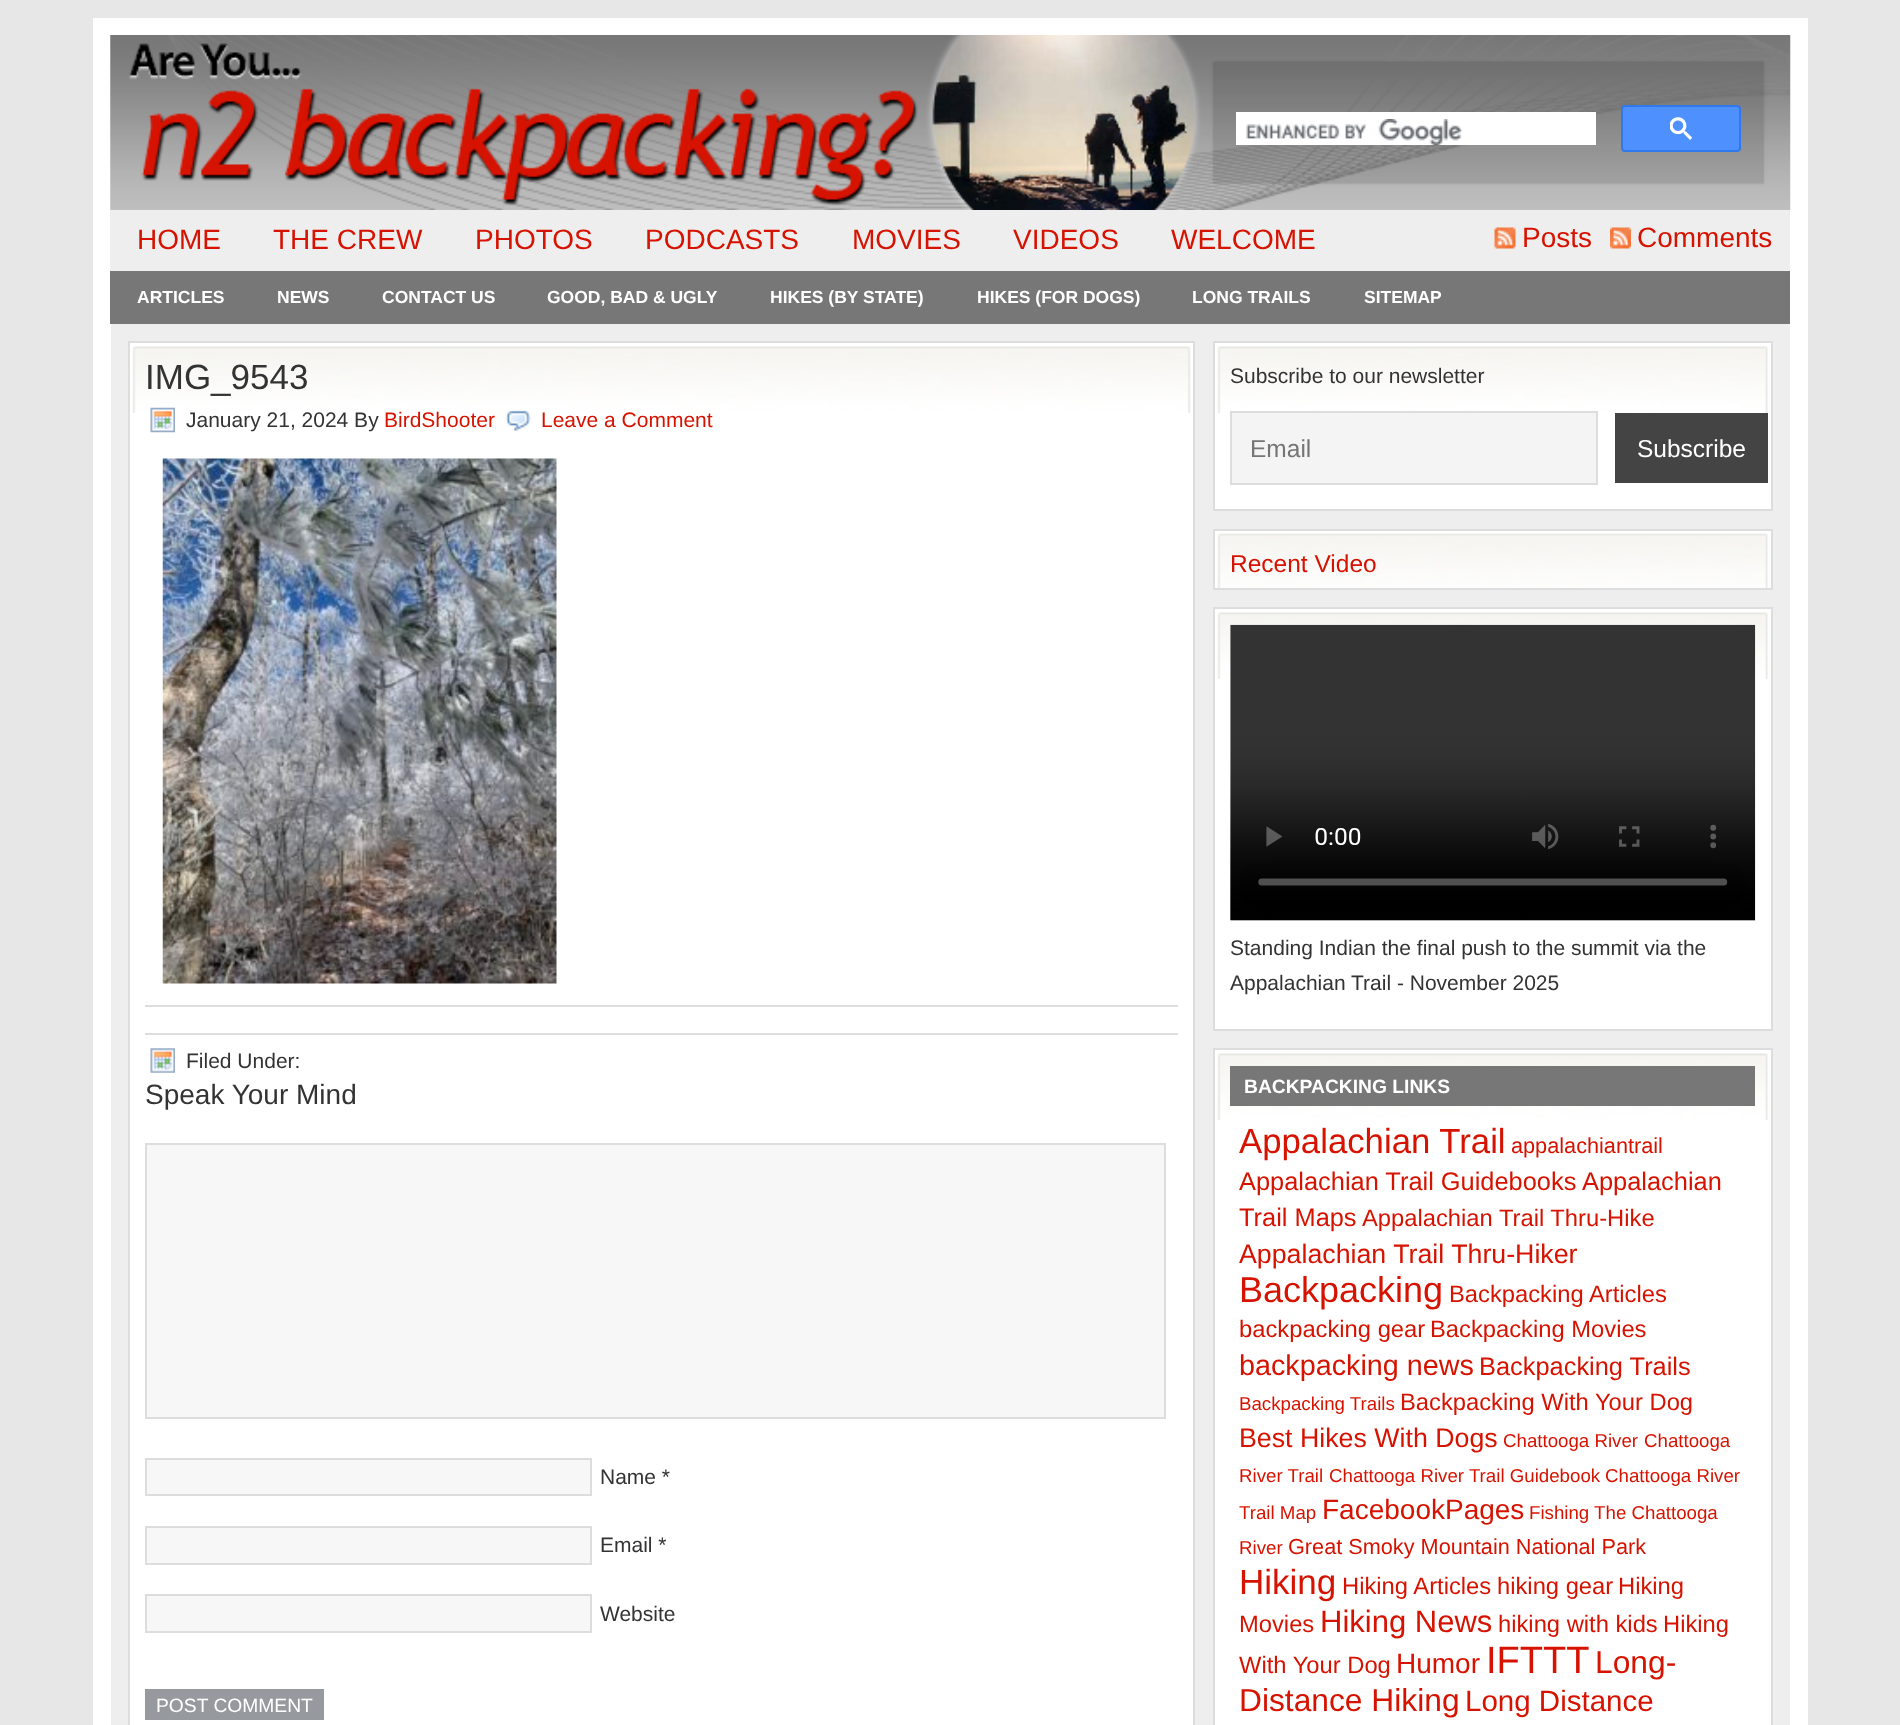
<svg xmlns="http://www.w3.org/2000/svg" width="1900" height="1725">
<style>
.a{font:28px Liberation Sans;fill:#d61300}
.b{font:bold 17.5px Liberation Sans;fill:#fff}
.c{font:35px Liberation Sans;fill:#333}
.d{font:21px Liberation Sans;fill:#333}
.e{font:21px Liberation Sans;fill:#d61300}
.f{font:28px Liberation Sans;fill:#333}
.g{font:19.25px Liberation Sans;fill:#fff}
.h{font:24.5px Liberation Sans;fill:#757575}
.i{font:24.5px Liberation Sans;fill:#fff}
.j{font:24.5px Liberation Sans;fill:#d61300}
.k{font:bold 19.25px Liberation Sans;fill:#fff}
.l{font:34.75px Liberation Sans;fill:#d61300}
.m{font:21.7px Liberation Sans;fill:#d61300}
.n{font:25.4px Liberation Sans;fill:#d61300}
.o{font:23.75px Liberation Sans;fill:#d61300}
.p{font:26.75px Liberation Sans;fill:#d61300}
.q{font:36px Liberation Sans;fill:#d61300}
.r{font:28.75px Liberation Sans;fill:#d61300}
.s{font:18.7px Liberation Sans;fill:#d61300}
.t{font:35px Liberation Sans;fill:#d61300}
.u{font:31px Liberation Sans;fill:#d61300}
.v{font:38px Liberation Sans;fill:#d61300}
.w{font:31.75px Liberation Sans;fill:#d61300}
.x{font:29.5px Liberation Sans;fill:#d61300}
</style>
<rect width="100%" height="100%" fill="#e7e7e7"/>
<path fill="#eee" d="M111 324h1679v1401H111z"/>
<path fill="none" stroke="#fff" stroke-width="18" d="M102 27h1697v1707H102z"/>
<image href="1.png" x="110" y="35" width="1681" height="175"/>
<path fill="#fff" d="M1236 112h360v33H1236z"/>
<image href="2.png" x="1246" y="119" width="216" height="27"/>
<rect fill="#4d90fe" stroke="#3079ed" stroke-width="2" x="1622" y="106" width="118" height="45" rx="3"/>
<image href="3.png" x="1670" y="117" width="22" height="23"/>
<path fill="#eee" d="M110 210h1680v61H110z"/>
<image href="4.png" x="1494" y="227" width="22" height="22"/>
<image href="5.png" x="1610" y="227" width="21" height="22"/>
<path fill="#777" d="M110 271h1680v53H110z"/>
<path fill="#fff" d="M130 343h1063v1382H130z"/>
<image href="6.png" x="132" y="346" width="1059" height="67"/>
<path fill="none" stroke="#ddd" stroke-width="2" d="M129 342h1065v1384H129z"/>
<image href="7.png" x="150" y="407" width="25" height="26"/>
<image href="8.png" x="505" y="410" width="26" height="21"/>
<image href="9.png" x="162" y="458" width="395" height="526"/>
<path fill="#ddd" d="M145 1005h1033v2H145z"/>
<path fill="#ddd" d="M145 1033h1033v2H145z"/>
<image href="10.png" x="150" y="1048" width="25" height="25"/>
<path fill="#f7f7f7" stroke="#ddd" stroke-width="2" d="M146 1144h1019v274H146z"/>
<path fill="#f7f7f7" stroke="#ddd" stroke-width="2" d="M146 1459h445v36H146z"/>
<path fill="#f7f7f7" stroke="#ddd" stroke-width="2" d="M146 1527h445v37H146z"/>
<path fill="#f7f7f7" stroke="#ddd" stroke-width="2" d="M146 1595h445v37H146z"/>
<path fill="#969a9f" d="M145 1689h179v31H145z"/>
<path fill="#fff" d="M1215 343h556v166H1215z"/>
<image href="11.png" x="1217" y="346" width="551" height="67"/>
<path fill="none" stroke="#ddd" stroke-width="2" d="M1214 342h558v168H1214z"/>
<path fill="#f4f4f4" stroke="#ddd" stroke-width="2" d="M1231 412h366v72H1231z"/>
<path fill="#444" d="M1615 413h153v70H1615z"/>
<path fill="#fff" d="M1215 531h556v57H1215z"/>
<image href="12.png" x="1217" y="533" width="551" height="55"/>
<path fill="none" stroke="#ddd" stroke-width="2" d="M1214 530h558v59H1214z"/>
<path fill="#fff" d="M1215 609h556v420H1215z"/>
<image href="11.png" x="1217" y="612" width="551" height="67"/>
<path fill="none" stroke="#ddd" stroke-width="2" d="M1214 608h558v422H1214z"/>
<image href="13.png" x="1230" y="624" width="526" height="297"/>
<path fill="#fff" d="M1215 1050h556v675H1215z"/>
<image href="11.png" x="1217" y="1053" width="551" height="67"/>
<path fill="none" stroke="#ddd" stroke-width="2" d="M1214 1049h558v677H1214z"/>
<path fill="#777" d="M1230 1066h525v40H1230z"/>
<text class="a" x="137" y="249">HOME</text>
<text class="a" x="273" y="249">THE CREW</text>
<text class="a" x="475" y="249">PHOTOS</text>
<text class="a" x="645" y="249">PODCASTS</text>
<text class="a" x="852" y="249">MOVIES</text>
<text class="a" x="1013" y="249">VIDEOS</text>
<text class="a" x="1171" y="249">WELCOME</text>
<text class="a" x="1522" y="247">Posts</text>
<text class="a" x="1637" y="247">Comments</text>
<text class="b" x="137" y="303">ARTICLES</text>
<text class="b" x="277" y="303">NEWS</text>
<text class="b" x="382" y="303">CONTACT US</text>
<text class="b" x="547" y="303">GOOD, BAD &amp; UGLY</text>
<text class="b" x="770" y="303">HIKES (BY STATE)</text>
<text class="b" x="977" y="303">HIKES (FOR DOGS)</text>
<text class="b" x="1192" y="303">LONG TRAILS</text>
<text class="b" x="1364" y="303">SITEMAP</text>
<text class="c" x="145" y="389">IMG_9543</text>
<text class="d" x="186" y="427">January 21, 2024 By</text>
<text class="e" x="384" y="427">BirdShooter</text>
<text class="e" x="541" y="427">Leave a Comment</text>
<text class="d" x="186" y="1068">Filed Under:</text>
<text class="f" x="145" y="1104">Speak Your Mind</text>
<text class="d" x="600" y="1484">Name *</text>
<text class="d" x="600" y="1552">Email *</text>
<text class="d" x="600" y="1621">Website</text>
<text class="g" x="156" y="1712">POST COMMENT</text>
<text class="d" x="1230" y="383">Subscribe to our newsletter</text>
<text class="h" x="1250" y="457">Email</text>
<text class="i" x="1637" y="457">Subscribe</text>
<text class="j" x="1230" y="572">Recent Video</text>
<text class="d" x="1230" y="955">Standing Indian the final push to the summit via the</text>
<text class="d" x="1230" y="990">Appalachian Trail - November 2025</text>
<text class="k" x="1244" y="1093">BACKPACKING LINKS</text>
<text class="l" x="1239" y="1153">Appalachian Trail</text>
<text class="m" x="1511" y="1153">appalachiantrail</text>
<text class="n" x="1239" y="1190">Appalachian Trail Guidebooks</text>
<text class="n" x="1582" y="1190">Appalachian</text>
<text class="n" x="1239" y="1226">Trail Maps</text>
<text class="o" x="1362" y="1226">Appalachian Trail Thru-Hike</text>
<text class="p" x="1239" y="1263">Appalachian Trail Thru-Hiker</text>
<text class="q" x="1239" y="1302">Backpacking</text>
<text class="o" x="1449" y="1302">Backpacking Articles</text>
<text class="o" x="1239" y="1337">backpacking gear</text>
<text class="o" x="1430" y="1337">Backpacking Movies</text>
<text class="r" x="1239" y="1375">backpacking news</text>
<text class="n" x="1479" y="1375">Backpacking Trails</text>
<text class="s" x="1239" y="1410">Backpacking Trails</text>
<text class="o" x="1400" y="1410">Backpacking With Your Dog</text>
<text class="p" x="1239" y="1447">Best Hikes With Dogs</text>
<text class="s" x="1503" y="1447">Chattooga River</text>
<text class="s" x="1644" y="1447">Chattooga</text>
<text class="s" x="1239" y="1482">River Trail</text>
<text class="s" x="1329" y="1482">Chattooga River Trail Guidebook</text>
<text class="s" x="1605" y="1482">Chattooga River</text>
<text class="s" x="1239" y="1519">Trail Map</text>
<text class="a" x="1322" y="1519">FacebookPages</text>
<text class="s" x="1529" y="1519">Fishing The Chattooga</text>
<text class="s" x="1239" y="1554">River</text>
<text class="m" x="1288" y="1554">Great Smoky Mountain National Park</text>
<text class="t" x="1239" y="1594">Hiking</text>
<text class="o" x="1342" y="1594">Hiking Articles</text>
<text class="o" x="1497" y="1594">hiking gear</text>
<text class="o" x="1618" y="1594">Hiking</text>
<text class="o" x="1239" y="1632">Movies</text>
<text class="u" x="1320" y="1632">Hiking News</text>
<text class="o" x="1498" y="1632">hiking with kids</text>
<text class="o" x="1663" y="1632">Hiking</text>
<text class="o" x="1239" y="1673">With Your Dog</text>
<text class="a" x="1396" y="1673">Humor</text>
<text class="v" x="1486" y="1673">IFTTT</text>
<text class="w" x="1595" y="1673">Long-</text>
<text class="w" x="1239" y="1711">Distance Hiking</text>
<text class="x" x="1465" y="1711">Long Distance</text>
</svg>
